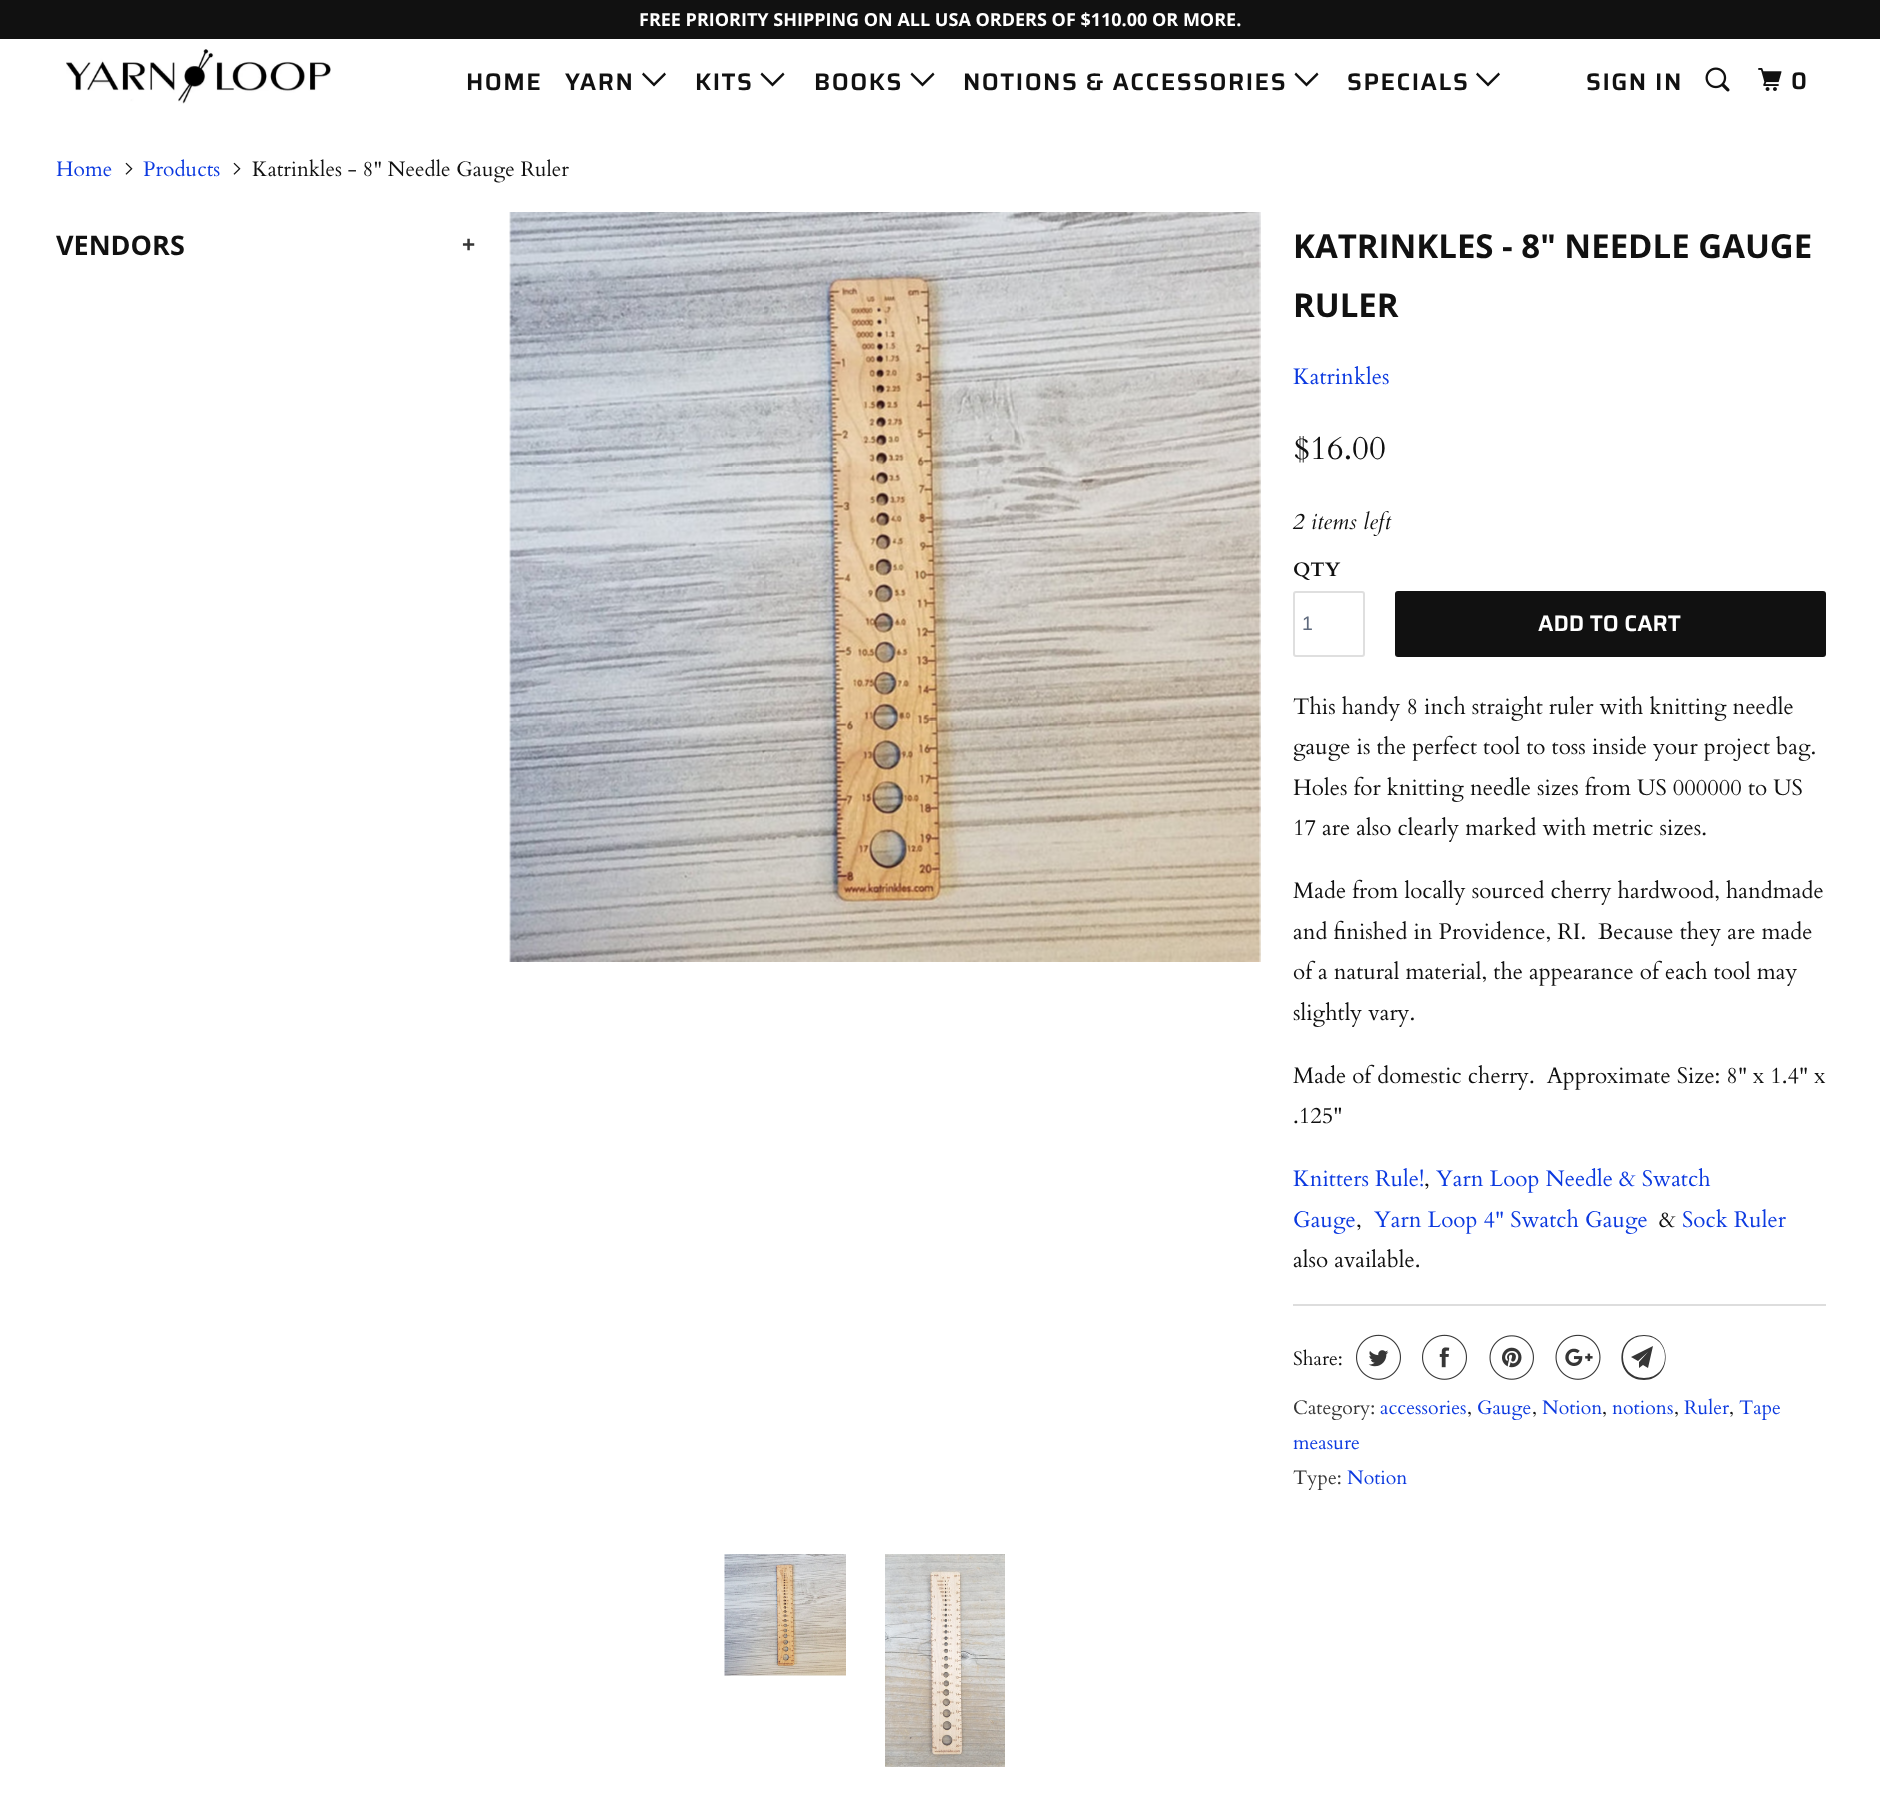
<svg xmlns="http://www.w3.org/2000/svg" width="1880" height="1801">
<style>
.a{font:bold 18px Open Sans;fill:#fff}
.b{font:600 24px Saira;letter-spacing:1.5px;fill:#111}
.c{font:21px Cardo;fill:#0c3ae0}
.d{font:21px Cardo;fill:#111}
.e{font:bold 27px Open Sans;fill:#111}
.f{font:bold 22.5px Liberation Sans;fill:#363636}
.g{font:bold 33px Open Sans;fill:#111}
.h{font:22.5px Cardo;fill:#0c3ae0}
.i{font:33px Cardo;fill:#111}
.j{font:italic 22.5px Cardo;fill:#111}
.k{font:bold 19.5px Cardo;fill:#111}
.l{font:19.5px Liberation Sans;fill:#5f6a7d}
.m{font:600 22.5px Saira;fill:#fff}
.n{font:22.5px Cardo;fill:#111}
.o{font:19.5px Cardo;fill:#111}
.p{font:19.5px Cardo;fill:#363636}
.q{font:19.5px Cardo;fill:#0c3ae0}
</style>
<rect width="100%" height="100%" fill="#fff"/>
<path fill="#111" d="M0 0h1880v39H0z"/>
<image href="1.png" x="66" y="49" width="265" height="55"/>
<path fill="#111" d="M648 80.5l-6-6l1.5-2l10.5 10.5l10.5-10.5l1.5 2l-12 12z"/>
<path fill="#111" d="M766.5 80.5l-6-6l1.5-2l10.5 10.5l10.5-10.5l1.5 2l-12 12z"/>
<path fill="#111" d="M916.5 80.5l-6-6l1.5-2l10.5 10.5l10.5-10.5l1.5 2l-12 12z"/>
<path fill="#111" d="M1300.5 80.5l-6-6l1.5-2l10.5 10.5l10.5-10.5l1.5 2l-12 12z"/>
<path fill="#111" d="M1482 80.5l-6-6l1.5-2l10.5 10.5l10.5-10.5l1.5 2l-12 12z"/>
<image href="2.png" x="1705" y="67" width="25" height="25"/>
<image href="3.png" x="1758" y="68" width="24" height="23"/>
<image href="4.png" x="125" y="162" width="8" height="13"/>
<image href="4.png" x="233" y="162" width="8" height="13"/>
<image href="5.png" x="509" y="212" width="752" height="750"/>
<image href="6.png" x="724" y="1554" width="122" height="122"/>
<image href="7.png" x="885" y="1554" width="120" height="213"/>
<rect fill="none" stroke="#dfdfdf" stroke-width="2" x="1294" y="592" width="70" height="64" rx="2"/>
<rect fill="#111" x="1395" y="591" width="431" height="66" rx="3"/>
<path fill="#ddd" d="M1293 1304h533v2H1293z"/>
<image href="8.png" x="1356" y="1334" width="45" height="46"/>
<image href="9.png" x="1422" y="1334" width="45" height="46"/>
<image href="10.png" x="1489" y="1335" width="45" height="45"/>
<image href="11.png" x="1555" y="1334" width="46" height="46"/>
<path fill="#363636" d="M1648 1368l-5-3l-4 3v-6l9-10l-10 9l-7-4l22-11zm-4-32c-28 0-28 42 0 42c28 0 28-42 0-42zm0 44c-30 0-30-45 0-45c29 0 29 45 0 45z"/>
<text class="a" x="639" y="26">FREE PRIORITY SHIPPING ON ALL USA ORDERS OF $110.00 OR MORE.</text>
<text class="b" x="466" y="90">HOME</text>
<text class="b" x="565" y="90">YARN</text>
<text class="b" x="695" y="90">KITS</text>
<text class="b" x="814" y="90">BOOKS</text>
<text class="b" x="963" y="90">NOTIONS &amp; ACCESSORIES</text>
<text class="b" x="1347" y="90">SPECIALS</text>
<text class="b" x="1586" y="90">SIGN IN</text>
<text class="b" x="1791" y="89">0</text>
<text class="c" x="56" y="176">Home</text>
<text class="c" x="143" y="176">Products</text>
<text class="d" x="252" y="176">Katrinkles - 8" Needle Gauge Ruler</text>
<text class="e" x="56" y="255">VENDORS</text>
<text class="f" x="462" y="252">+</text>
<text class="g" x="1293" y="258">KATRINKLES - 8" NEEDLE GAUGE</text>
<text class="g" x="1293" y="317">RULER</text>
<text class="h" x="1293" y="384">Katrinkles</text>
<text class="i" x="1293" y="459">$16.00</text>
<text class="j" x="1293" y="529">2 items left</text>
<text class="k" x="1293" y="576">QTY</text>
<text class="l" x="1302" y="630">1</text>
<text class="m" x="1538" y="631">ADD TO CART</text>
<text class="n" x="1293" y="714">This handy 8 inch straight ruler with knitting needle</text>
<text class="n" x="1293" y="754">gauge is the perfect tool to toss inside your project bag.</text>
<text class="n" x="1293" y="795">Holes for knitting needle sizes from US 000000 to US</text>
<text class="n" x="1293" y="835">17 are also clearly marked with metric sizes.</text>
<text class="n" x="1293" y="898">Made from locally sourced cherry hardwood, handmade</text>
<text class="n" x="1293" y="939">and finished in Providence, RI.</text>
<text class="n" x="1598" y="939">Because they are made</text>
<text class="n" x="1293" y="979">of a natural material, the appearance of each tool may</text>
<text class="n" x="1293" y="1020">slightly vary.</text>
<text class="n" xml:space="preserve" x="1293" y="1083">Made of domestic cherry.  Approximate Size: 8" x 1.4" x</text>
<text class="n" x="1293" y="1123">.125"</text>
<text class="h" x="1293" y="1186">Knitters Rule!</text>
<text class="n" x="1424" y="1186">,</text>
<text class="h" x="1436" y="1186">Yarn Loop Needle &amp; Swatch</text>
<text class="h" x="1293" y="1227">Gauge</text>
<text class="n" x="1356" y="1227">,</text>
<text class="h" x="1374" y="1227">Yarn Loop 4" Swatch Gauge</text>
<text class="n" x="1659" y="1227">&amp;</text>
<text class="h" x="1682" y="1227">Sock Ruler</text>
<text class="n" x="1293" y="1267">also available.</text>
<text class="o" x="1293" y="1365">Share:</text>
<text class="p" x="1293" y="1414">Category:</text>
<text class="q" x="1380" y="1414">accessories</text>
<text class="o" x="1467" y="1414">,</text>
<text class="q" x="1477" y="1414">Gauge</text>
<text class="o" x="1532" y="1414">,</text>
<text class="q" x="1542" y="1414">Notion</text>
<text class="o" x="1602" y="1414">,</text>
<text class="q" x="1612" y="1414">notions</text>
<text class="o" x="1674" y="1414">,</text>
<text class="q" x="1684" y="1414">Ruler</text>
<text class="o" x="1729" y="1414">,</text>
<text class="q" x="1739" y="1414">Tape</text>
<text class="q" x="1293" y="1449">measure</text>
<text class="p" x="1293" y="1484">Type:</text>
<text class="q" x="1347" y="1484">Notion</text>
</svg>
